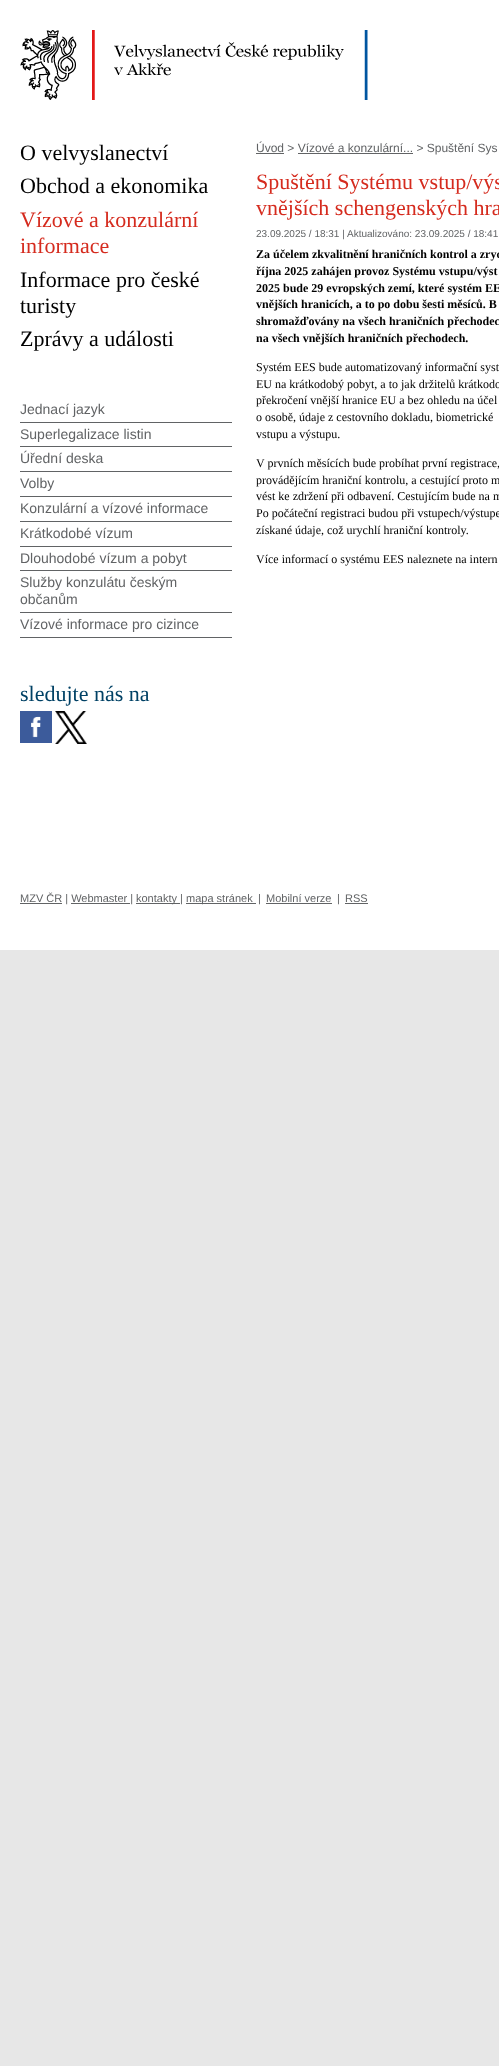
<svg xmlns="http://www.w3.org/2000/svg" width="499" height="2066">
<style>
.a{font:22px Liberation Serif;fill:#000}
.b{font:22px Liberation Serif;fill:#d52b1e}
.c{font:12px Liberation Sans;fill:#616365}
.d{font:10px Liberation Sans;fill:#616365}
.e{font:bold 12px Liberation Serif;fill:#000}
.f{font:12px Liberation Serif;fill:#000}
.g{font:14px Liberation Sans;fill:#616365}
.h{font:22px Liberation Serif;fill:#004165}
.i{font:11px Liberation Sans;fill:#616365}
</style>
<rect width="100%" height="100%" fill="#e7e7e7"/>
<path fill="#fff" d="M0 0h499v950H0z"/>
<image href="1.png" x="20" y="30" width="348" height="70"/>
<path fill="#616365" d="M256 153h28v1H256z"/>
<path fill="#616365" d="M298 153h115v1H298z"/>
<path fill="#616365" d="M20 422h212v1H20z"/>
<path fill="#616365" d="M20 446h212v1H20z"/>
<path fill="#616365" d="M20 471h212v1H20z"/>
<path fill="#616365" d="M20 496h212v1H20z"/>
<path fill="#616365" d="M20 521h212v1H20z"/>
<path fill="#616365" d="M20 546h212v1H20z"/>
<path fill="#616365" d="M20 570h212v1H20z"/>
<path fill="#616365" d="M20 612h212v1H20z"/>
<path fill="#616365" d="M20 637h212v1H20z"/>
<image href="2.png" x="20" y="711" width="32" height="32"/>
<image href="3.png" x="55" y="711" width="32" height="33"/>
<path fill="#616365" d="M20 903h42v1H20z"/>
<path fill="#616365" d="M136 903h41v1H136z"/>
<path fill="#616365" d="M177 903h3v1H177z"/>
<path fill="#616365" d="M186 903h70v1H186z"/>
<path fill="#616365" d="M266 903h66v1H266z"/>
<path fill="#616365" d="M345 903h23v1H345z"/>
<path fill="#616365" d="M71 903h59v1H71z"/>
<text class="a" x="20" y="160">O velvyslanectví</text>
<text class="a" x="20" y="193">Obchod a ekonomika</text>
<text class="b" x="20" y="227">Vízové a konzulární</text>
<text class="b" x="20" y="253">informace</text>
<text class="a" x="20" y="287">Informace pro české</text>
<text class="a" x="20" y="313">turisty</text>
<text class="a" x="20" y="346">Zprávy a události</text>
<text class="c" x="256" y="152">Úvod &gt; Vízové a konzulární... &gt; Spuštění Sys</text>
<text class="b" x="256" y="189">Spuštění Systému vstup/výs</text>
<text class="b" x="256" y="215">vnějších schengenských hra</text>
<text class="d" x="256" y="237">23.09.2025 / 18:31 | Aktualizováno: 23.09.2025 / 18:41</text>
<text class="e" x="256" y="258">Za účelem zkvalitnění hraničních kontrol a zryc</text>
<text class="e" x="256" y="275">října 2025 zahájen provoz Systému vstupu/výst</text>
<text class="e" x="256" y="292">2025 bude 29 evropských zemí, které systém EE</text>
<text class="e" x="256" y="308">vnějších hranicích, a to po dobu šesti měsíců. B</text>
<text class="e" x="256" y="325">shromažďovány na všech hraničních přechodec</text>
<text class="e" x="256" y="342">na všech vnějších hraničních přechodech.</text>
<text class="f" x="256" y="371">Systém EES bude automatizovaný informační syst</text>
<text class="f" x="256" y="388">EU na krátkodobý pobyt, a to jak držitelů krátkodo</text>
<text class="f" x="256" y="404">překročení vnější hranice EU a bez ohledu na účel</text>
<text class="f" x="256" y="421">o osobě, údaje z cestovního dokladu, biometrické</text>
<text class="f" x="256" y="438">vstupu a výstupu.</text>
<text class="f" x="256" y="467">V prvních měsících bude probíhat první registrace,</text>
<text class="f" x="256" y="484">provádějícím hraniční kontrolu, a cestující proto m</text>
<text class="f" x="256" y="500">vést ke zdržení při odbavení. Cestujícím bude na m</text>
<text class="f" x="256" y="517">Po počáteční registraci budou při vstupech/výstupe</text>
<text class="f" x="256" y="534">získané údaje, což urychlí hraniční kontroly.</text>
<text class="f" x="256" y="563">Více informací o systému EES naleznete na intern</text>
<text class="g" x="20" y="414">Jednací jazyk</text>
<text class="g" x="20" y="439">Superlegalizace listin</text>
<text class="g" x="20" y="463">Úřední deska</text>
<text class="g" x="20" y="488">Volby</text>
<text class="g" x="20" y="513">Konzulární a vízové informace</text>
<text class="g" x="20" y="538">Krátkodobé vízum</text>
<text class="g" x="20" y="563">Dlouhodobé vízum a pobyt</text>
<text class="g" x="20" y="587">Služby konzulátu českým</text>
<text class="g" x="20" y="604">občanům</text>
<text class="g" x="20" y="629">Vízové informace pro cizince</text>
<text class="h" x="20" y="701">sledujte nás na</text>
<text class="i" x="20" y="902">MZV ČR | Webmaster |</text>
<text class="i" x="136" y="902">kontakty |</text>
<text class="i" x="186" y="902">mapa stránek</text>
<text class="i" x="258" y="902">|</text>
<text class="i" x="266" y="902">Mobilní verze</text>
<text class="i" x="337" y="902">|</text>
<text class="i" x="345" y="902">RSS</text>
</svg>
